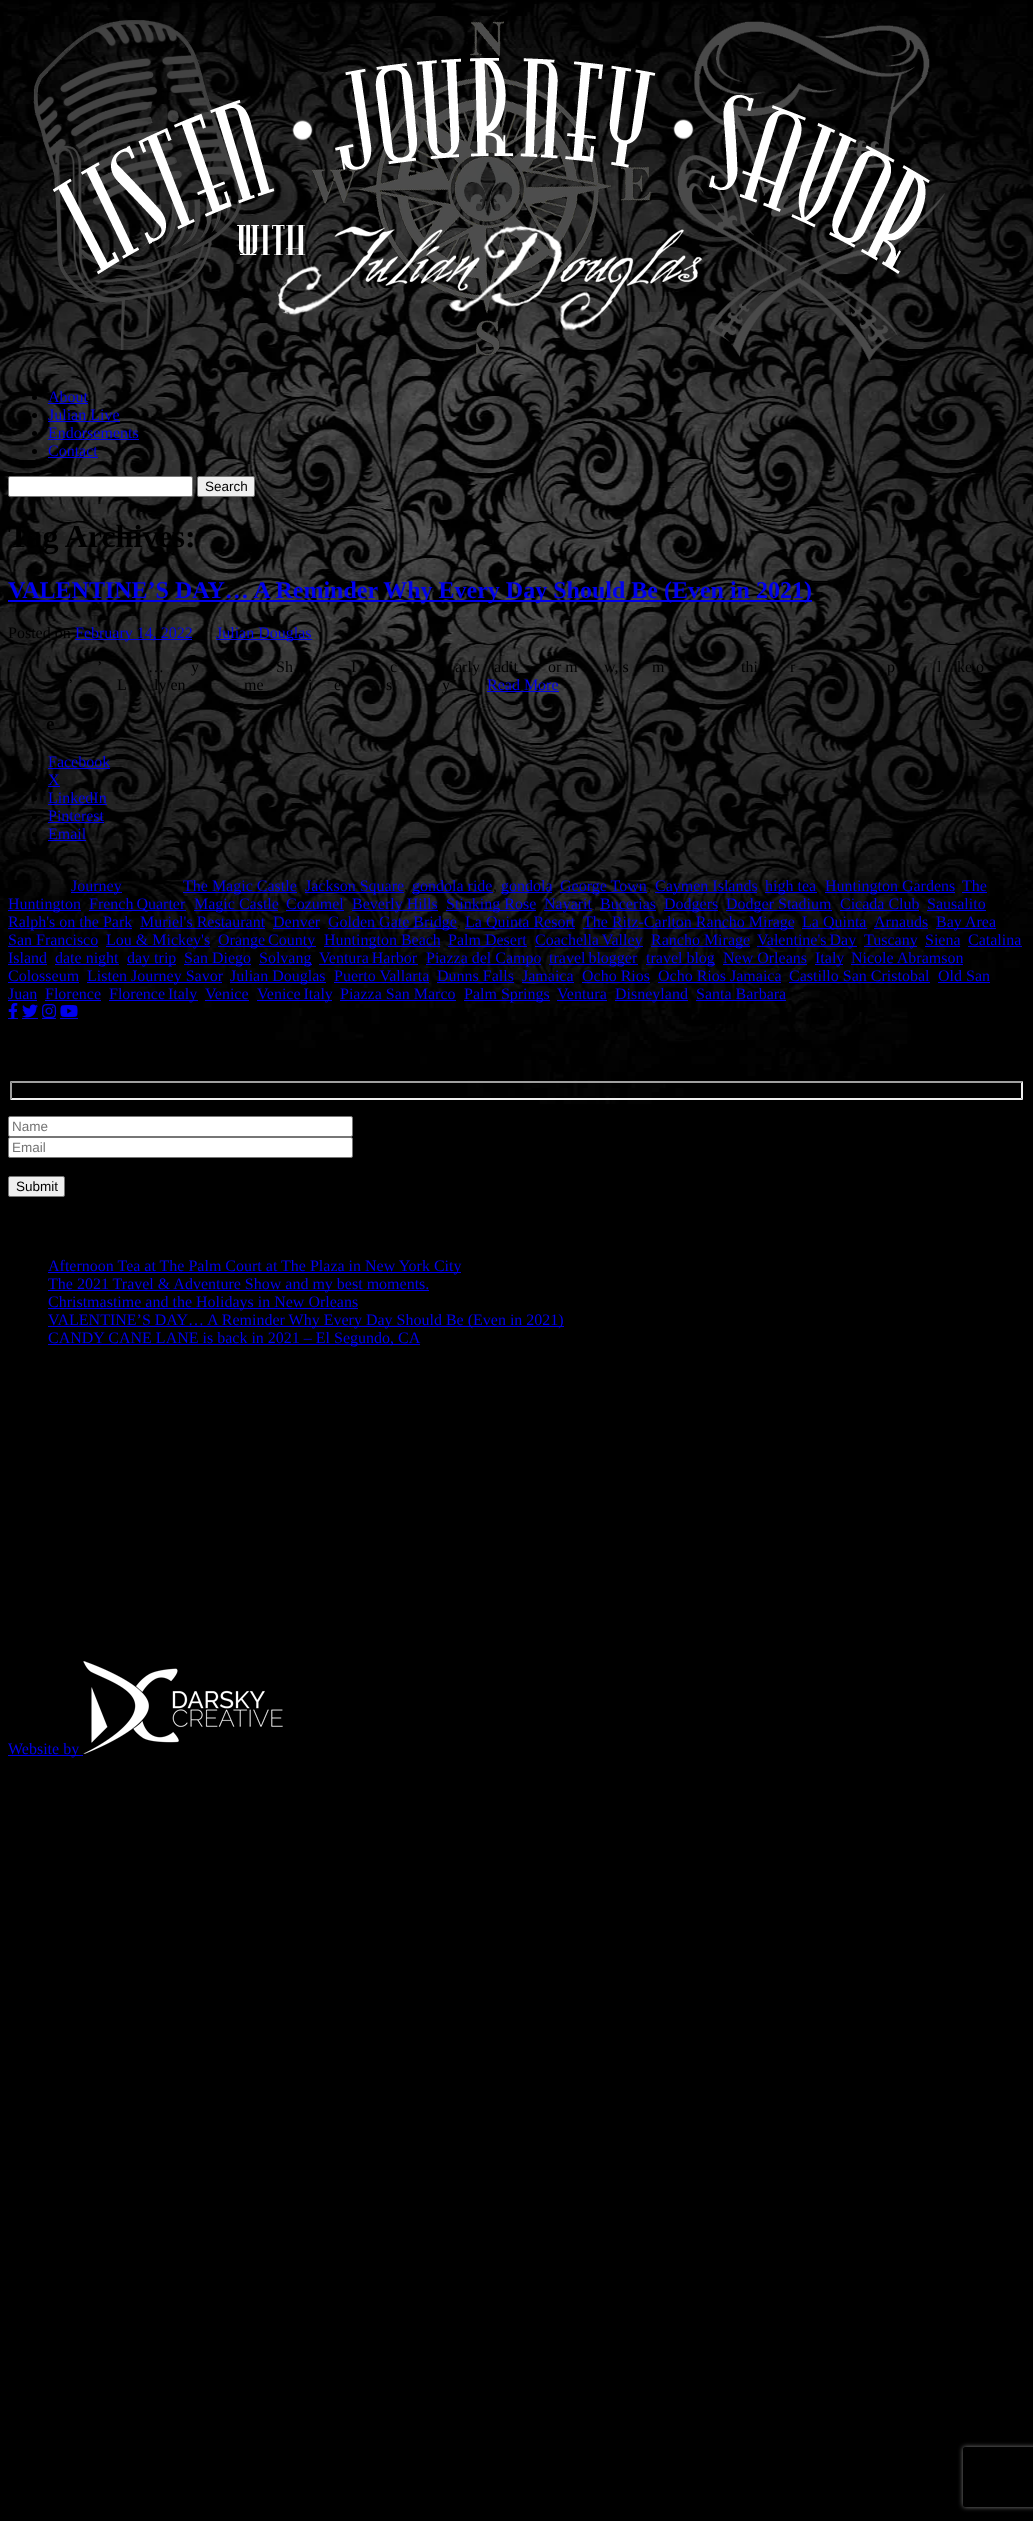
<svg xmlns="http://www.w3.org/2000/svg" width="1033" height="2521">
<style>
.a{font:16px Liberation Serif;fill:#00e}
.b{font:13.5px Liberation Sans;fill:#000}
.c{font:bold 32px Liberation Serif;fill:#000}
.d{font:bold 24px Liberation Serif;fill:#00e}
.e{font:16px Liberation Serif;fill:#000}
.f{font:bold 19px Liberation Serif;fill:#000}
.g{font:13.5px Liberation Sans;fill:#757575}
</style>
<defs>
<clipPath id="clip1"><path d="M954 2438h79v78h-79zm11 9h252c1 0 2 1 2 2v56c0 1-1 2-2 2h-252c-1 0-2-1-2-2v-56c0-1 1-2 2-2z" clip-rule="evenodd"/></clipPath>
</defs>
<rect width="100%" height="100%" fill="#000"/>
<image href="1.png" x="0" y="0" width="1033" height="1104"/>
<image href="2.png" x="33" y="20" width="912" height="342"/>
<circle fill="#000" cx="34.5" cy="397.5" r="2.5"/>
<path fill="#00e" d="M48 403h40v1H48z"/>
<circle fill="#000" cx="34.5" cy="415.5" r="2.5"/>
<path fill="#00e" d="M48 421h72v1H48z"/>
<circle fill="#000" cx="34.5" cy="433.5" r="2.5"/>
<path fill="#00e" d="M48 439h91v1H48z"/>
<circle fill="#000" cx="34.5" cy="451.5" r="2.5"/>
<path fill="#00e" d="M48 457h50v1H48z"/>
<rect fill="#fff" stroke="#767676" x="8.5" y="476.5" width="184" height="20" rx="1.5"/>
<rect fill="#efefef" stroke="#767676" x="197.5" y="476.5" width="57" height="20" rx="1.5"/>
<path fill="#00e" d="M8 600h804v2H8z"/>
<path fill="#00e" d="M75 639h117v1H75z"/>
<path fill="#00e" d="M216 639h96v1H216z"/>
<path fill="#00e" d="M487 691h72v1H487z"/>
<circle fill="#000" cx="34.5" cy="762.5" r="2.5"/>
<path fill="#00e" d="M48 768h62v1H48z"/>
<circle fill="#000" cx="34.5" cy="780.5" r="2.5"/>
<path fill="#00e" d="M48 786h12v1H48z"/>
<circle fill="#000" cx="34.5" cy="798.5" r="2.5"/>
<path fill="#00e" d="M48 804h59v1H48z"/>
<circle fill="#000" cx="34.5" cy="816.5" r="2.5"/>
<path fill="#00e" d="M48 822h56v1H48z"/>
<circle fill="#000" cx="34.5" cy="834.5" r="2.5"/>
<path fill="#00e" d="M48 840h38v1H48z"/>
<path fill="#00e" d="M71 892h51v1H71z"/>
<path fill="#00e" d="M183 892h114v1H183z"/>
<path fill="#00e" d="M305 892h99v1H305z"/>
<path fill="#00e" d="M412 892h81v1H412z"/>
<path fill="#00e" d="M501 892h51v1H501z"/>
<path fill="#00e" d="M560 892h87v1H560z"/>
<path fill="#00e" d="M655 892h102v1H655z"/>
<path fill="#00e" d="M765 892h52v1H765z"/>
<path fill="#00e" d="M825 892h130v1H825z"/>
<path fill="#00e" d="M962 892h25v1H962z"/>
<path fill="#00e" d="M8 910h73v1H8z"/>
<path fill="#00e" d="M89 910h97v1H89z"/>
<path fill="#00e" d="M194 910h84v1H194z"/>
<path fill="#00e" d="M286 910h58v1H286z"/>
<path fill="#00e" d="M352 910h86v1H352z"/>
<path fill="#00e" d="M446 910h90v1H446z"/>
<path fill="#00e" d="M544 910h48v1H544z"/>
<path fill="#00e" d="M600 910h56v1H600z"/>
<path fill="#00e" d="M664 910h54v1H664z"/>
<path fill="#00e" d="M726 910h106v1H726z"/>
<path fill="#00e" d="M840 910h79v1H840z"/>
<path fill="#00e" d="M927 910h59v1H927z"/>
<path fill="#00e" d="M8 928h124v1H8z"/>
<path fill="#00e" d="M140 928h125v1H140z"/>
<path fill="#00e" d="M273 928h47v1H273z"/>
<path fill="#00e" d="M328 928h129v1H328z"/>
<path fill="#00e" d="M465 928h110v1H465z"/>
<path fill="#00e" d="M583 928h211v1H583z"/>
<path fill="#00e" d="M802 928h65v1H802z"/>
<path fill="#00e" d="M874 928h54v1H874z"/>
<path fill="#00e" d="M936 928h60v1H936z"/>
<path fill="#00e" d="M8 946h90v1H8z"/>
<path fill="#00e" d="M106 946h104v1H106z"/>
<path fill="#00e" d="M218 946h98v1H218z"/>
<path fill="#00e" d="M324 946h116v1H324z"/>
<path fill="#00e" d="M448 946h79v1H448z"/>
<path fill="#00e" d="M535 946h108v1H535z"/>
<path fill="#00e" d="M651 946h99v1H651z"/>
<path fill="#00e" d="M757 946h100v1H757z"/>
<path fill="#00e" d="M864 946h53v1H864z"/>
<path fill="#00e" d="M925 946h35v1H925z"/>
<path fill="#00e" d="M968 946h54v1H968z"/>
<path fill="#00e" d="M8 964h39v1H8z"/>
<path fill="#00e" d="M55 964h64v1H55z"/>
<path fill="#00e" d="M127 964h49v1H127z"/>
<path fill="#00e" d="M184 964h67v1H184z"/>
<path fill="#00e" d="M259 964h53v1H259z"/>
<path fill="#00e" d="M319 964h99v1H319z"/>
<path fill="#00e" d="M426 964h115v1H426z"/>
<path fill="#00e" d="M549 964h89v1H549z"/>
<path fill="#00e" d="M646 964h69v1H646z"/>
<path fill="#00e" d="M723 964h84v1H723z"/>
<path fill="#00e" d="M815 964h28v1H815z"/>
<path fill="#00e" d="M851 964h112v1H851z"/>
<path fill="#00e" d="M8 982h71v1H8z"/>
<path fill="#00e" d="M87 982h135v1H87z"/>
<path fill="#00e" d="M230 982h96v1H230z"/>
<path fill="#00e" d="M334 982h95v1H334z"/>
<path fill="#00e" d="M437 982h77v1H437z"/>
<path fill="#00e" d="M522 982h52v1H522z"/>
<path fill="#00e" d="M582 982h68v1H582z"/>
<path fill="#00e" d="M658 982h123v1H658z"/>
<path fill="#00e" d="M789 982h141v1H789z"/>
<path fill="#00e" d="M938 982h52v1H938z"/>
<path fill="#00e" d="M8 1000h29v1H8z"/>
<path fill="#00e" d="M45 1000h56v1H45z"/>
<path fill="#00e" d="M109 1000h89v1H109z"/>
<path fill="#00e" d="M205 1000h44v1H205z"/>
<path fill="#00e" d="M257 1000h75v1H257z"/>
<path fill="#00e" d="M340 1000h116v1H340z"/>
<path fill="#00e" d="M464 1000h86v1H464z"/>
<path fill="#00e" d="M557 1000h50v1H557z"/>
<path fill="#00e" d="M615 1000h73v1H615z"/>
<path fill="#00e" d="M696 1000h90v1H696z"/>
<image href="3.png" x="8" y="1003" width="10" height="15"/>
<path fill="#00e" d="M8 1018h10v1H8z"/>
<image href="4.png" x="22" y="1004" width="16" height="14"/>
<path fill="#00e" d="M22 1018h16v1H22z"/>
<image href="5.png" x="42" y="1004" width="15" height="14"/>
<path fill="#00e" d="M42 1018h14v1H42z"/>
<image href="6.png" x="60" y="1005" width="18" height="12"/>
<path fill="#00e" d="M60 1018h18v1H60z"/>
<path fill="#9f9f9f" d="M10 1081h1013l-2 2h-1009z"/>
<path fill="#efefef" d="M1023 1081v19l-2-2v-15z"/>
<path fill="#efefef" d="M1023 1100h-1013l2-2h1009z"/>
<path fill="#9f9f9f" d="M10 1100v-19l2 2v15z"/>
<rect fill="#fff" stroke="#767676" x="8.5" y="1116.5" width="344" height="20" rx="1.5"/>
<rect fill="#fff" stroke="#767676" x="8.5" y="1137.5" width="344" height="20" rx="1.5"/>
<rect fill="#efefef" stroke="#767676" x="8.5" y="1176.5" width="56" height="20" rx="1.5"/>
<path fill="#00e" d="M48 1272h413v1H48z"/>
<path fill="#00e" d="M48 1290h381v1H48z"/>
<path fill="#00e" d="M48 1308h310v1H48z"/>
<path fill="#00e" d="M48 1326h516v1H48z"/>
<path fill="#00e" d="M48 1344h372v1H48z"/>
<path fill="#00e" d="M8 1755h71v1H8z"/>
<path fill="#00e" d="M79 1755h4v1H79z"/>
<image href="7.png" x="83" y="1661" width="200" height="93"/>
<g clip-path="url(#clip1)">
<rect fill="#808080" filter="blur(2.5px)" x="963" y="2447" width="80" height="60" rx="2"/>
</g>
<text class="a" x="48" y="402">About</text>
<text class="a" x="48" y="420">Julian Live</text>
<text class="a" x="48" y="438">Endorsements</text>
<text class="a" x="48" y="456">Contact</text>
<text class="b" x="205" y="491">Search</text>
<text class="c" x="8" y="547">Tag Archives:</text>
<text class="d" x="8" y="598">VALENTINE’S DAY… A Reminder Why Every Day Should Be (Even in 2021)</text>
<text class="e" x="8" y="638">Posted on</text>
<text class="a" x="75" y="638">February 14, 2022</text>
<text class="a" x="216" y="638">Julian Douglas</text>
<text class="e" x="97" y="672">’</text>
<text class="e" x="148" y="672">…</text>
<text class="e" x="191" y="672">y</text>
<text class="e" x="276" y="672">Sh</text>
<text class="e" x="351" y="672">I</text>
<text class="e" x="390" y="672">c</text>
<text class="e" x="455" y="672">arly</text>
<text class="e" x="494" y="672">adit</text>
<text class="e" x="548" y="672">or m</text>
<text class="e" x="604" y="672">w, s</text>
<text class="e" x="652" y="672">m</text>
<text class="e" x="741" y="672">thi</text>
<text class="e" x="790" y="672">r</text>
<text class="e" x="887" y="672">p</text>
<text class="e" x="937" y="672">l</text>
<text class="e" x="957" y="672">ke o</text>
<text class="e" x="68" y="690">’</text>
<text class="e" x="117" y="690">L</text>
<text class="e" x="154" y="690">ly en</text>
<text class="e" x="244" y="690">me</text>
<text class="e" x="308" y="690">i</text>
<text class="e" x="334" y="690">e</text>
<text class="e" x="386" y="690">s</text>
<text class="e" x="442" y="690">y</text>
<text class="a" x="487" y="690">Read More</text>
<text class="f" x="46" y="730">e</text>
<text class="a" x="48" y="767">Facebook</text>
<text class="a" x="48" y="785">X</text>
<text class="a" x="48" y="803">LinkedIn</text>
<text class="a" x="48" y="821">Pinterest</text>
<text class="a" x="48" y="839">Email</text>
<text class="a" x="71" y="891">Journey</text>
<text class="a" x="183" y="891">The Magic Castle</text>
<text class="a" x="305" y="891">Jackson Square</text>
<text class="e" x="404" y="891">,</text>
<text class="a" x="412" y="891">gondola ride</text>
<text class="e" x="493" y="891">,</text>
<text class="a" x="501" y="891">gondola</text>
<text class="a" x="560" y="891">George Town</text>
<text class="e" x="647" y="891">,</text>
<text class="a" x="655" y="891">Caymen Islands</text>
<text class="a" x="765" y="891">high tea</text>
<text class="a" x="825" y="891">Huntington Gardens</text>
<text class="a" x="962" y="891">The</text>
<text class="a" x="8" y="909">Huntington</text>
<text class="a" x="89" y="909" word-spacing="-1">French Quarter</text>
<text class="a" x="194" y="909">Magic Castle</text>
<text class="a" x="286" y="909">Cozumel</text>
<text class="a" x="352" y="909">Beverly Hills</text>
<text class="a" x="446" y="909">Stinking Rose</text>
<text class="a" x="544" y="909">Nayarit</text>
<text class="e" x="592" y="909">,</text>
<text class="a" x="600" y="909">Bucerias</text>
<text class="a" x="664" y="909">Dodgers</text>
<text class="a" x="726" y="909">Dodger Stadium</text>
<text class="a" x="840" y="909">Cicada Club</text>
<text class="a" x="927" y="909">Sausalito</text>
<text class="a" x="8" y="927">Ralph's on the Park</text>
<text class="a" x="140" y="927">Muriel's Restaurant</text>
<text class="a" x="273" y="927">Denver</text>
<text class="a" x="328" y="927">Golden Gate Bridge</text>
<text class="e" x="457" y="927">,</text>
<text class="a" x="465" y="927">La Quinta Resort</text>
<text class="a" x="583" y="927">The Ritz-Carlton Rancho Mirage</text>
<text class="a" x="802" y="927">La Quinta</text>
<text class="a" x="874" y="927">Arnauds</text>
<text class="a" x="936" y="927">Bay Area</text>
<text class="a" x="8" y="945">San Francisco</text>
<text class="a" x="106" y="945">Lou &amp; Mickey's</text>
<text class="a" x="218" y="945" word-spacing="-1">Orange County</text>
<text class="a" x="324" y="945">Huntington Beach</text>
<text class="a" x="448" y="945">Palm Desert</text>
<text class="a" x="535" y="945" word-spacing="-1">Coachella Valley</text>
<text class="a" x="651" y="945">Rancho Mirage</text>
<text class="a" x="757" y="945" word-spacing="-1">Valentine's Day</text>
<text class="a" x="864" y="945">Tuscany</text>
<text class="a" x="925" y="945">Siena</text>
<text class="a" x="968" y="945">Catalina</text>
<text class="a" x="8" y="963">Island</text>
<text class="a" x="55" y="963">date night</text>
<text class="a" x="127" y="963">day trip</text>
<text class="a" x="184" y="963">San Diego</text>
<text class="a" x="259" y="963">Solvang</text>
<text class="a" x="319" y="963" word-spacing="-1">Ventura Harbor</text>
<text class="a" x="426" y="963">Piazza del Campo</text>
<text class="a" x="549" y="963" word-spacing="-1">travel blogger</text>
<text class="a" x="646" y="963">travel blog</text>
<text class="a" x="723" y="963">New Orleans</text>
<text class="a" x="815" y="963">Italy</text>
<text class="a" x="851" y="963">Nicole Abramson</text>
<text class="a" x="8" y="981">Colosseum</text>
<text class="a" x="87" y="981">Listen Journey Savor</text>
<text class="a" x="230" y="981">Julian Douglas</text>
<text class="a" x="334" y="981">Puerto Vallarta</text>
<text class="a" x="437" y="981">Dunns Falls</text>
<text class="a" x="522" y="981">Jamaica</text>
<text class="a" x="582" y="981">Ocho Rios</text>
<text class="a" x="658" y="981">Ocho Rios Jamaica</text>
<text class="a" x="789" y="981">Castillo San Cristobal</text>
<text class="a" x="938" y="981">Old San</text>
<text class="a" x="8" y="999">Juan</text>
<text class="a" x="45" y="999">Florence</text>
<text class="a" x="109" y="999" word-spacing="-1">Florence Italy</text>
<text class="a" x="205" y="999">Venice</text>
<text class="a" x="257" y="999" word-spacing="-1">Venice Italy</text>
<text class="a" x="340" y="999">Piazza San Marco</text>
<text class="a" x="464" y="999">Palm Springs</text>
<text class="a" x="557" y="999">Ventura</text>
<text class="a" x="615" y="999">Disneyland</text>
<text class="a" x="696" y="999">Santa Barbara</text>
<text class="g" x="12" y="1131">Name</text>
<text class="g" x="12" y="1152">Email</text>
<text class="b" x="16" y="1191">Submit</text>
<text class="a" x="48" y="1271">Afternoon Tea at The Palm Court at The Plaza in New York City</text>
<text class="a" x="48" y="1289">The 2021 Travel &amp; Adventure Show and my best moments.</text>
<text class="a" x="48" y="1307">Christmastime and the Holidays in New Orleans</text>
<text class="a" x="48" y="1325">VALENTINE’S DAY… A Reminder Why Every Day Should Be (Even in 2021)</text>
<text class="a" x="48" y="1343">CANDY CANE LANE is back in 2021 – El Segundo, CA</text>
<text class="a" x="8" y="1754">Website by</text>
</svg>
